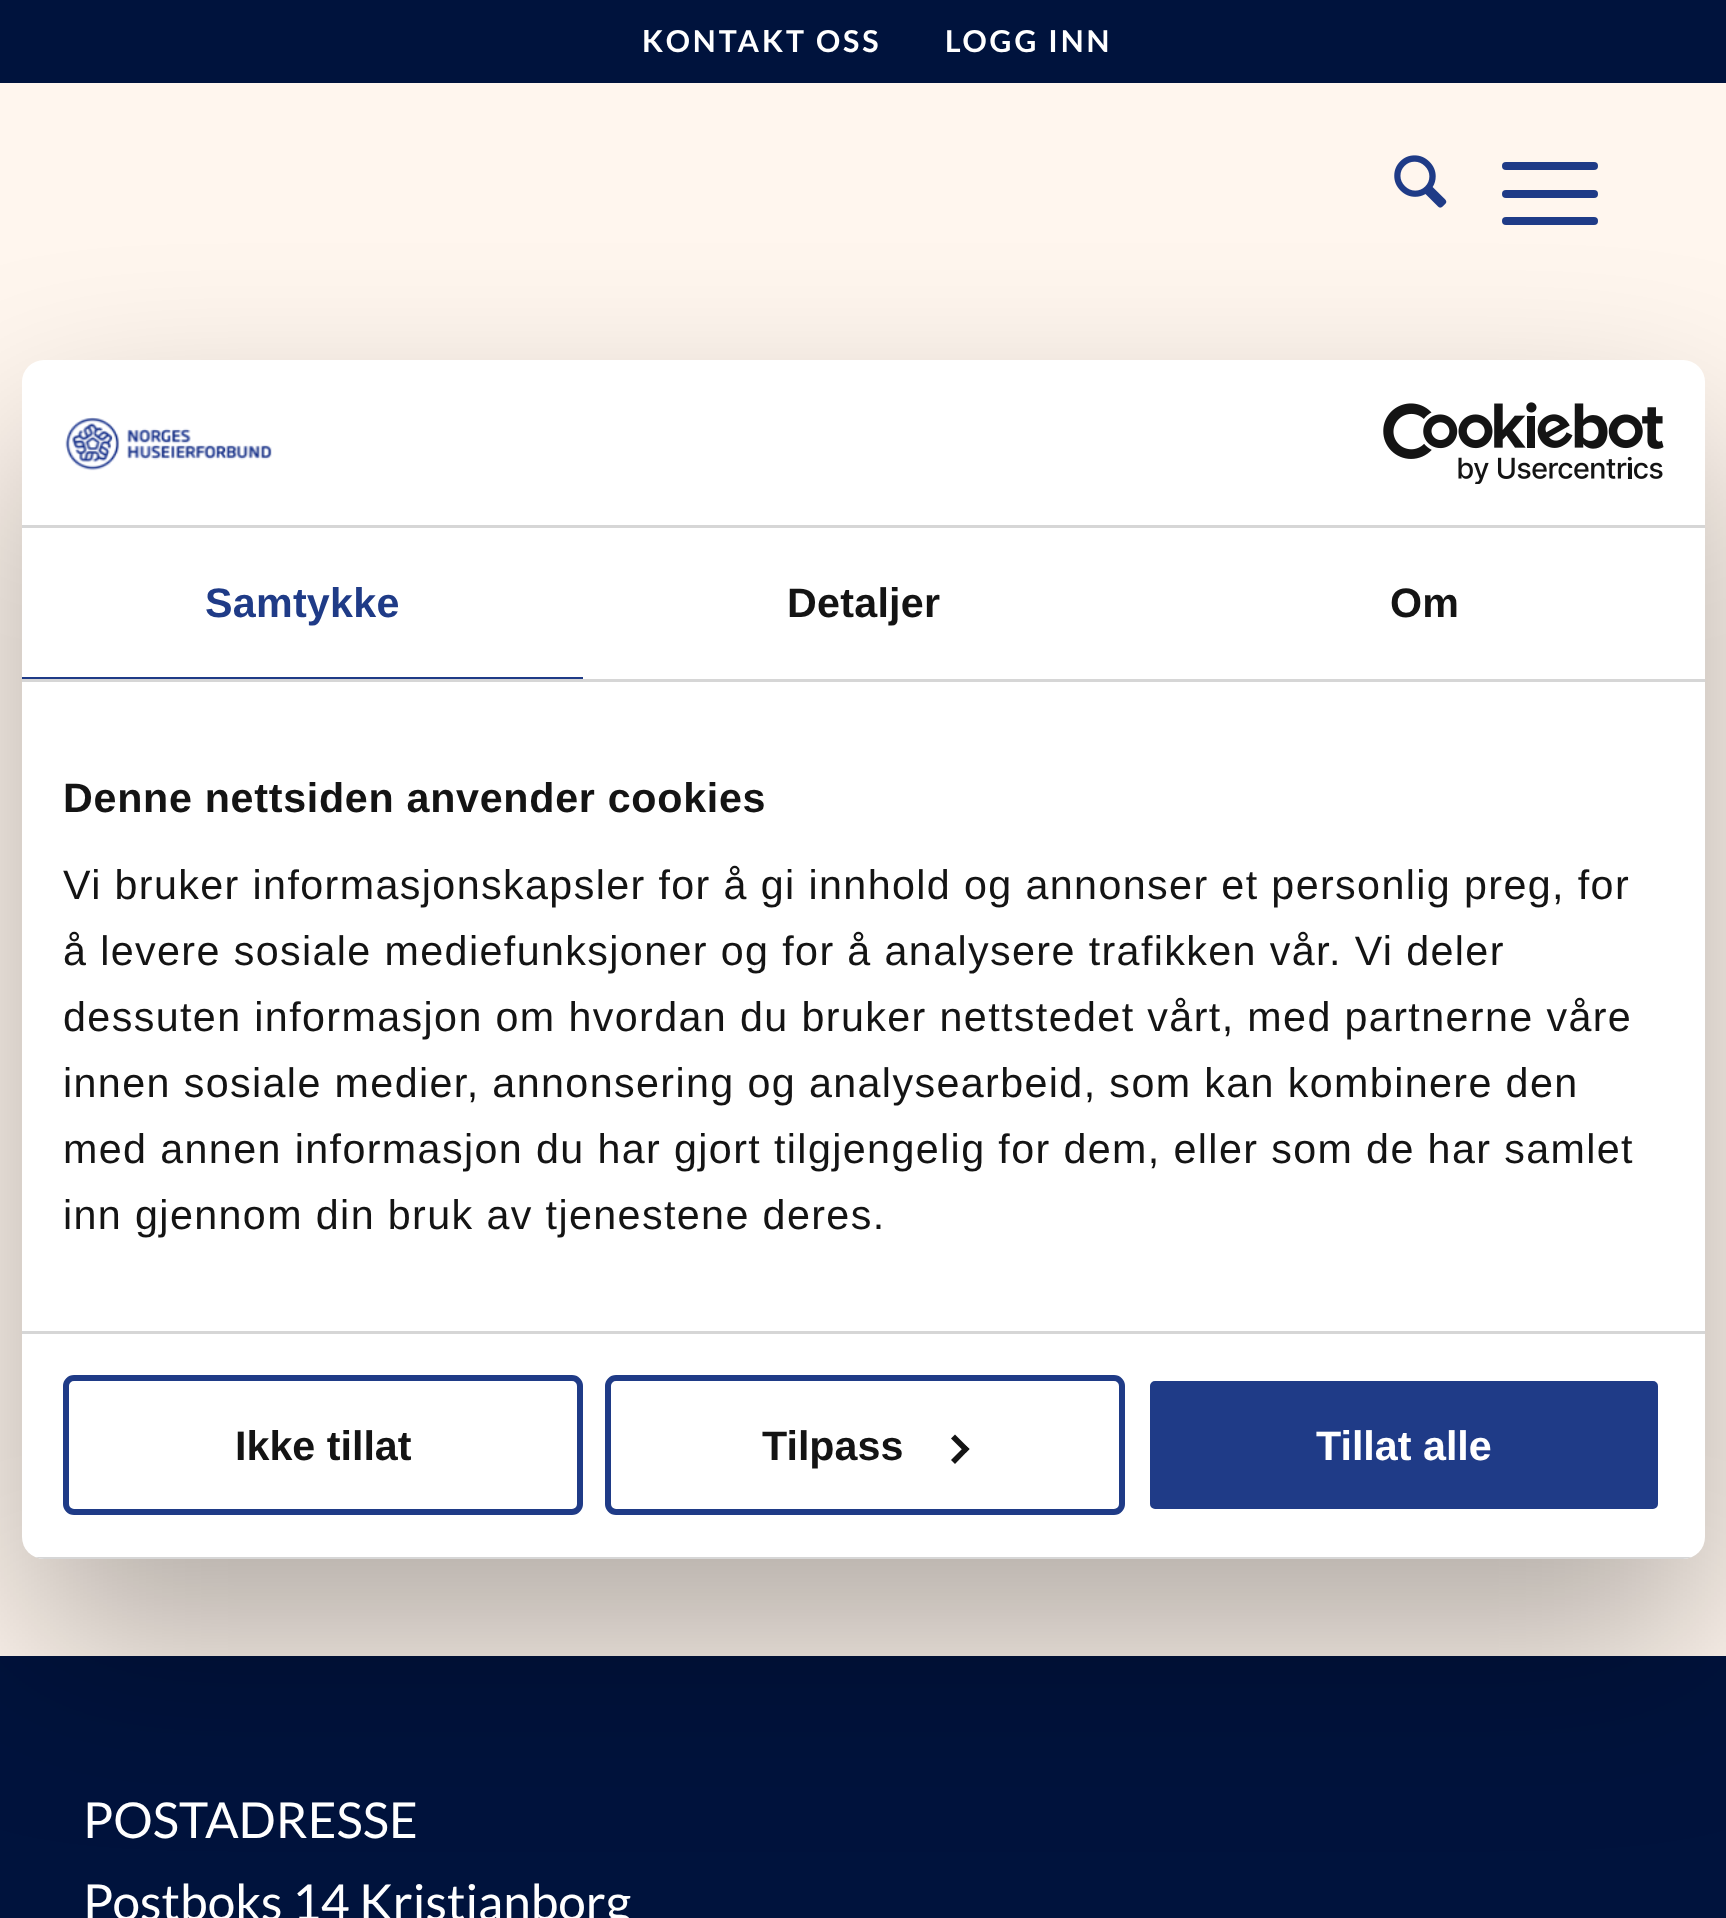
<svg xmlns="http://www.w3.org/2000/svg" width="1726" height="1918">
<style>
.a{font:bold 30.25px Lato;letter-spacing:3px;fill:#fff}
.b{font:49.5px Lato;fill:#fff}
.c{font:bold 41.25px Liberation Sans;letter-spacing:0.25px;fill:#1f3b87}
.d{font:bold 41.25px Liberation Sans;letter-spacing:0.25px;fill:#141414}
.e{font:bold 41.25px Liberation Sans;letter-spacing:0.7px;fill:#141414}
.f{font:41.25px Liberation Sans;letter-spacing:1.38px;fill:#141414}
.g{font:bold 41.25px Liberation Sans;fill:#141414}
.h{font:bold 41.25px Liberation Sans;fill:#fff}
</style>
<defs>
<clipPath id="clip1"><rect x="22" y="360" width="1683" height="1199" rx="22"/></clipPath>
</defs>
<rect width="100%" height="100%" fill="#fff6ee"/>
<path fill="#00133d" d="M0 0h1726v83H0z"/>
<image href="1.png" x="1394" y="155" width="53" height="53"/>
<rect fill="#1f3b87" x="1502" y="190" width="96" height="8" rx="4"/>
<rect fill="#1f3b87" x="1502" y="162" width="96" height="8" rx="4"/>
<rect fill="#1f3b87" x="1502" y="217" width="96" height="8" rx="4"/>
<path fill="#00133d" d="M0 1656h1726v262H0z"/>
<rect fill="#0000004d" filter="blur(93.5px)" x="22" y="448" width="1683" height="1199" rx="22"/>
<rect fill="#fff" x="22" y="360" width="1683" height="1199" rx="22"/>
<path fill="#d6d6d6" d="M22 525h1683v3H22z"/>
<image href="2.png" x="65" y="417" width="207" height="54"/>
<image href="3.png" x="1383" y="402" width="281" height="82"/>
<path fill="#d6d6d6" d="M22 679h1683v3H22z"/>
<path fill="#1f3b87" d="M22 677h561v2H22z"/>
<path fill="#d6d6d6" d="M22 1331h1683v3H22z"/>
<g clip-path="url(#clip1)">
<path fill="#d6d6d6" d="M35 1557h1657v2H35z"/>
</g>
<rect fill="none" stroke="#1f3b87" stroke-width="6" x="66" y="1378" width="514" height="134" rx="8"/>
<rect fill="none" stroke="#1f3b87" stroke-width="6" x="608" y="1378" width="514" height="134" rx="8"/>
<path fill="#141414" d="M955 1434.5l14.5 14.5l-4 4l-14.5-14.5z"/>
<path fill="#141414" d="M965.5 1445.5l4 3.5l-14.5 15l-4-4z"/>
<rect fill="#1f3b87" stroke="#fff" stroke-width="6" x="1147" y="1378" width="514" height="134" rx="8"/>
<text class="a" x="642" y="52">KONTAKT OSS</text>
<text class="a" x="945" y="52">LOGG INN</text>
<text class="b" x="83" y="1838">POSTADRESSE</text>
<text class="b" x="83" y="1920">Postboks 14 Kristianborg</text>
<text class="c" x="205" y="617">Samtykke</text>
<text class="d" x="787" y="617">Detaljer</text>
<text class="d" x="1390" y="617">Om</text>
<text class="e" x="63" y="812">Denne nettsiden anvender cookies</text>
<text class="f" x="63" y="899">Vi bruker informasjonskapsler for å gi innhold og annonser et personlig preg, for</text>
<text class="f" x="63" y="965">å levere sosiale mediefunksjoner og for å analysere trafikken vår. Vi deler</text>
<text class="f" x="63" y="1031">dessuten informasjon om hvordan du bruker nettstedet vårt, med partnerne våre</text>
<text class="f" x="63" y="1097">innen sosiale medier, annonsering og analysearbeid, som kan kombinere den</text>
<text class="f" x="63" y="1163">med annen informasjon du har gjort tilgjengelig for dem, eller som de har samlet</text>
<text class="f" x="63" y="1229">inn gjennom din bruk av tjenestene deres.</text>
<text class="g" x="235" y="1460">Ikke tillat</text>
<text class="g" x="762" y="1460">Tilpass</text>
<text class="h" x="1316" y="1460">Tillat alle</text>
</svg>
